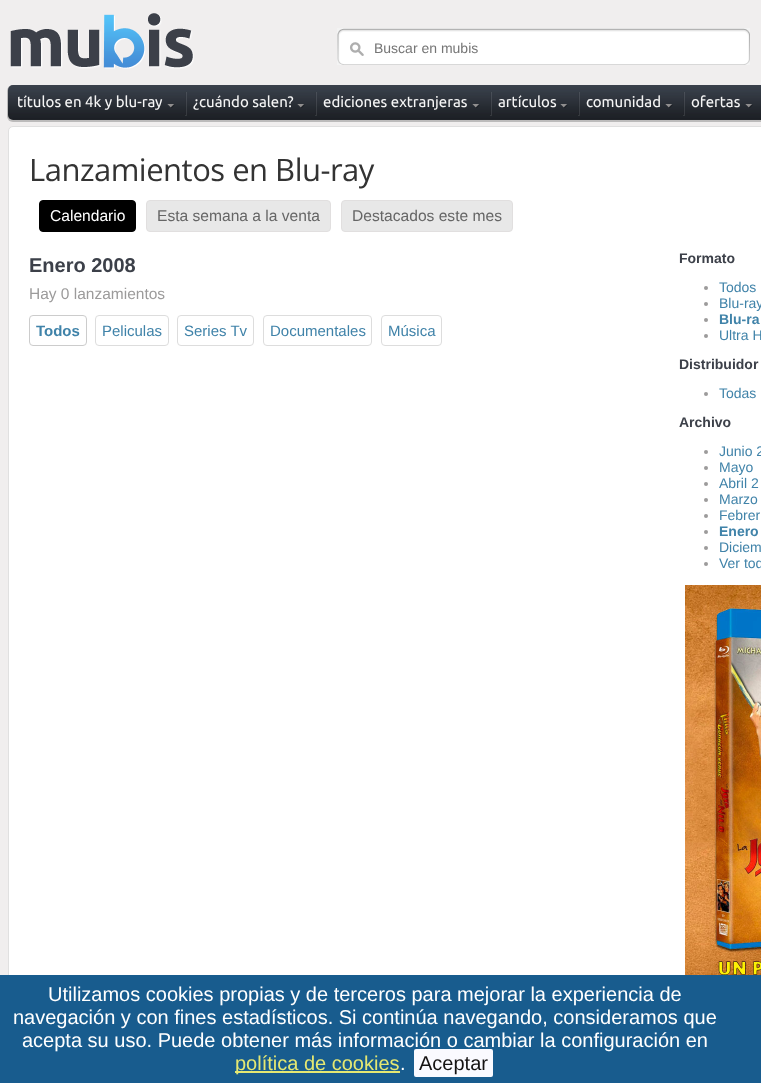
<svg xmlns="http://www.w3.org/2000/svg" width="761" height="1083">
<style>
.a{font:14px Liberation Sans;fill:#757575}
.b{font:15px Ubuntu;fill:#f5f5f5}
.c{font:31px Open Sans;letter-spacing:-0.5px;fill:#333}
.d{font:15.6px Liberation Sans;fill:#fff}
.e{font:15.6px Liberation Sans;fill:#666}
.f{font:bold 20px Liberation Sans;fill:#3c4049}
.g{font:15.5px Liberation Sans;fill:#9c9b9b}
.h{font:bold 15px Liberation Sans;fill:#4083a9}
.i{font:15px Liberation Sans;fill:#4083a9}
.j{font:bold 14px Liberation Sans;fill:#3c4049}
.k{font:14px Liberation Sans;fill:#4083a9}
.l{font:bold 14px Liberation Sans;fill:#4083a9}
.m{font:20px Liberation Sans;fill:#fff}
.n{font:20px Liberation Sans;fill:#e5e872}
.o{font:20px Liberation Sans;fill:#151313}
</style>
<rect width="100%" height="100%" fill="#f0eeee"/>
<image href="1.png" x="10" y="13" width="184" height="56"/>
<image href="2.png" x="337" y="28" width="413" height="37"/>
<rect fill="#4444444d" filter="blur(0.5px)" x="7" y="85" width="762" height="37" rx="6"/>
<image href="3.png" x="8" y="85" width="753" height="35"/>
<image href="4.png" x="167" y="104" width="8" height="4"/>
<image href="5.png" x="185" y="92" width="2" height="24"/>
<image href="4.png" x="297" y="104" width="8" height="4"/>
<image href="5.png" x="315" y="92" width="2" height="24"/>
<image href="4.png" x="472" y="104" width="8" height="4"/>
<image href="5.png" x="490" y="92" width="2" height="24"/>
<image href="4.png" x="560" y="104" width="8" height="4"/>
<image href="5.png" x="578" y="92" width="2" height="24"/>
<image href="4.png" x="665" y="104" width="8" height="4"/>
<image href="5.png" x="683" y="92" width="2" height="24"/>
<image href="4.png" x="745" y="104" width="8" height="4"/>
<path fill="#fff" stroke="#e0e0e0" d="M13 126.5h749c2.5 0 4.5 2 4.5 4.5v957.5h-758v-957.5c0-2.5 2-4.5 4.5-4.5z"/>
<rect fill="#000" stroke="#000" x="39.5" y="200.5" width="96" height="31" rx="3.5"/>
<rect fill="#e8e8e8" stroke="#e1dfdf" x="146.5" y="200.5" width="184" height="31" rx="3.5"/>
<rect fill="#e8e8e8" stroke="#e1dfdf" x="341.5" y="200.5" width="171" height="31" rx="3.5"/>
<rect fill="none" stroke="#ccc" x="29.5" y="315.5" width="57" height="30" rx="3.5"/>
<rect fill="none" stroke="#ddd" x="95.5" y="315.5" width="73" height="30" rx="3.5"/>
<rect fill="none" stroke="#ddd" x="177.5" y="315.5" width="76" height="30" rx="3.5"/>
<rect fill="none" stroke="#ddd" x="263.5" y="315.5" width="108" height="30" rx="3.5"/>
<rect fill="none" stroke="#ddd" x="381.5" y="315.5" width="60" height="30" rx="3.5"/>
<circle fill="#9c9b9b" cx="706" cy="288" r="2"/>
<circle fill="#9c9b9b" cx="706" cy="304" r="2"/>
<circle fill="#9c9b9b" cx="706" cy="320" r="2"/>
<circle fill="#9c9b9b" cx="706" cy="336" r="2"/>
<circle fill="#9c9b9b" cx="706" cy="394" r="2"/>
<circle fill="#9c9b9b" cx="706" cy="452" r="2"/>
<circle fill="#9c9b9b" cx="706" cy="468" r="2"/>
<circle fill="#9c9b9b" cx="706" cy="484" r="2"/>
<circle fill="#9c9b9b" cx="706" cy="500" r="2"/>
<circle fill="#9c9b9b" cx="706" cy="516" r="2"/>
<circle fill="#9c9b9b" cx="706" cy="532" r="2"/>
<circle fill="#9c9b9b" cx="706" cy="548" r="2"/>
<circle fill="#9c9b9b" cx="706" cy="564" r="2"/>
<image href="6.png" x="685" y="585" width="76" height="390"/>
<path fill="#185c8e" d="M0 975h761v108H0z"/>
<path fill="#e5e872" d="M235 1071h165v2H235z"/>
<text class="a" x="374" y="53">Buscar en mubis</text>
<text class="b" x="17" y="107">títulos en 4k y blu-ray</text>
<text class="b" x="193" y="107">¿cuándo salen?</text>
<text class="b" x="323" y="107">ediciones extranjeras</text>
<text class="b" x="498" y="107">artículos</text>
<text class="b" x="586" y="107">comunidad</text>
<text class="b" x="691" y="107">ofertas</text>
<text class="c" x="29" y="181">Lanzamientos en Blu-ray</text>
<text class="d" x="50" y="221">Calendario</text>
<text class="e" x="157" y="221">Esta semana a la venta</text>
<text class="e" x="352" y="221">Destacados este mes</text>
<text class="f" x="29" y="272">Enero 2008</text>
<text class="g" x="29" y="299">Hay 0 lanzamientos</text>
<text class="h" x="36" y="336">Todos</text>
<text class="i" x="102" y="336">Peliculas</text>
<text class="i" x="184" y="336">Series Tv</text>
<text class="i" x="270" y="336">Documentales</text>
<text class="i" x="388" y="336">Música</text>
<text class="j" x="679" y="263">Formato</text>
<text class="k" x="719" y="292">Todos</text>
<text class="k" x="719" y="308">Blu-ray</text>
<text class="l" x="719" y="324">Blu-ra</text>
<text class="k" x="719" y="340">Ultra H</text>
<text class="j" x="679" y="369">Distribuidor</text>
<text class="k" x="719" y="398">Todas</text>
<text class="j" x="679" y="427">Archivo</text>
<text class="k" x="719" y="456">Junio 2</text>
<text class="k" x="719" y="472">Mayo</text>
<text class="k" x="719" y="488">Abril 2</text>
<text class="k" x="719" y="504">Marzo</text>
<text class="k" x="719" y="520">Febrer</text>
<text class="l" x="719" y="536">Enero</text>
<text class="k" x="719" y="552">Diciem</text>
<text class="k" x="719" y="568">Ver tod</text>
<text class="m" x="48" y="1001">Utilizamos cookies propias y de terceros para mejorar la experiencia de</text>
<text class="m" x="13" y="1024">navegación y con fines estadísticos. Si continúa navegando, consideramos que</text>
<text class="m" x="22" y="1047">acepta su uso. Puede obtener más información o cambiar la configuración en</text>
<text class="n" x="235" y="1070">política de cookies</text>
<text class="m" x="400" y="1070">.</text>
<rect fill="#fafaff" x="414" y="1049" width="79" height="28" rx="2"/>
<text class="o" x="419" y="1070">Aceptar</text>
</svg>
